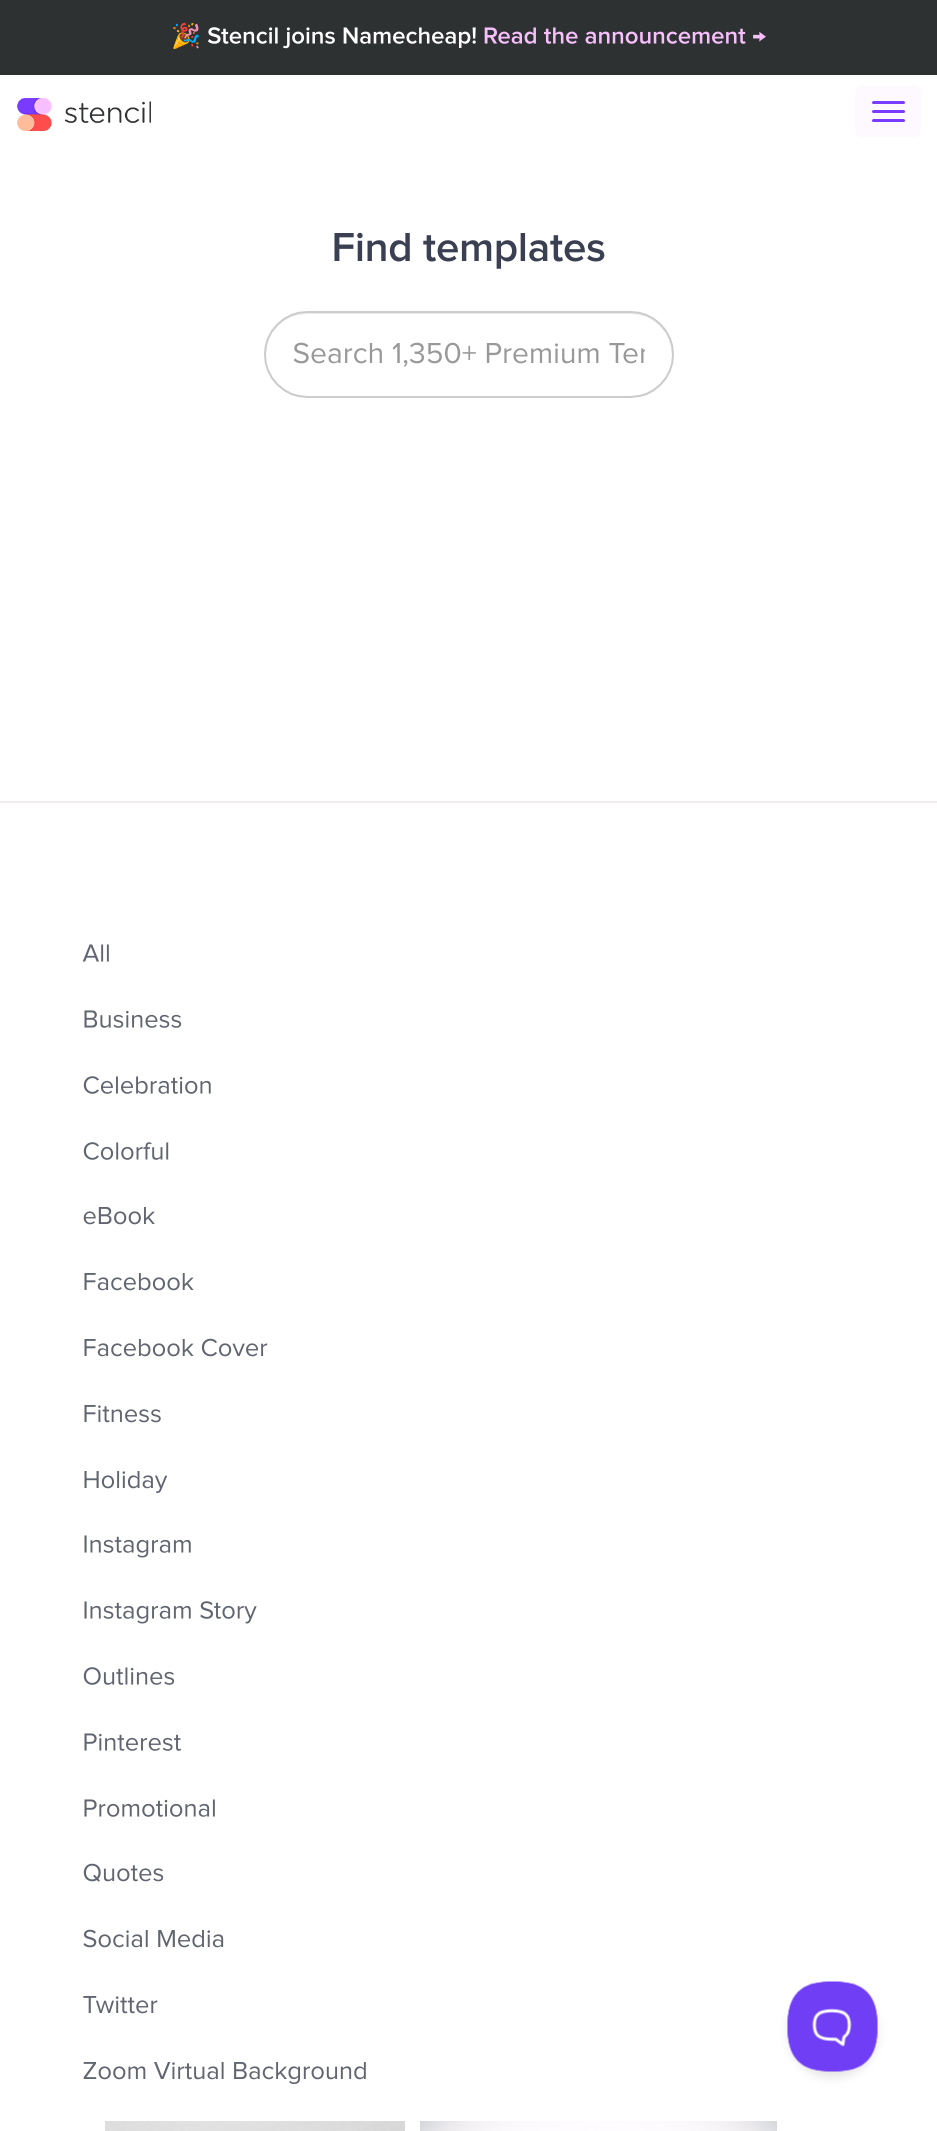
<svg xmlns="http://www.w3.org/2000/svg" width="937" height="2131">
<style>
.a{font:bold 24px Noto Color Emoji;fill:#fff}
</style>
<rect width="100%" height="100%" fill="#fff"/>
<path fill="#2e3132" d="M0 0h937v75H0z"/>
<image href="1.png" x="208" y="27" width="268" height="22"/>
<image href="2.png" x="484" y="27" width="282" height="17"/>
<image href="3.png" x="17" y="98" width="134" height="33"/>
<rect fill="#fef9ff" x="855" y="86" width="66" height="51" rx="6"/>
<rect fill="#783bff" x="872" y="101" width="33" height="3" rx="1.5"/>
<rect fill="#783bff" x="872" y="110" width="33" height="3" rx="1.5"/>
<rect fill="#783bff" x="872" y="119" width="33" height="3" rx="1.5"/>
<path fill="#f0ecf0" d="M0 801h937v2H0z"/>
<image href="4.png" x="334" y="232" width="271" height="37"/>
<path fill="#ececec" d="M308 314h322c23 0 41 17 42 41v-1c0-23-19-42-42-42h-322c-23 0-42 19-42 42v1c1-24 18-41 42-41z"/>
<rect fill="none" stroke="#ccc" stroke-width="2" x="265" y="312" width="408" height="85" rx="42.5"/>
<image href="5.png" x="293" y="342" width="352" height="25"/>
<image href="6.png" x="82" y="944" width="27" height="18"/>
<image href="7.png" x="84" y="1010" width="98" height="18"/>
<image href="8.png" x="83" y="1076" width="128" height="18"/>
<image href="9.png" x="83" y="1142" width="86" height="18"/>
<image href="10.png" x="83" y="1207" width="72" height="18"/>
<image href="11.png" x="84" y="1273" width="110" height="18"/>
<image href="12.png" x="84" y="1338" width="184" height="19"/>
<image href="13.png" x="84" y="1405" width="77" height="18"/>
<image href="14.png" x="84" y="1471" width="84" height="22"/>
<image href="15.png" x="84" y="1535" width="107" height="23"/>
<image href="16.png" x="84" y="1601" width="173" height="23"/>
<image href="17.png" x="83" y="1667" width="92" height="18"/>
<image href="18.png" x="84" y="1733" width="97" height="18"/>
<image href="19.png" x="84" y="1799" width="131" height="18"/>
<image href="20.png" x="83" y="1863" width="81" height="19"/>
<image href="21.png" x="83" y="1929" width="141" height="19"/>
<image href="22.png" x="83" y="1996" width="75" height="18"/>
<image href="23.png" x="83" y="2062" width="283" height="22"/>
<image href="24.png" x="105" y="2121" width="300" height="10"/>
<image href="25.png" x="420" y="2121" width="357" height="10"/>
<rect fill="#0000001a" filter="blur(5px)" x="788" y="1988" width="90" height="90" rx="45"/>
<image href="26.png" x="787" y="1981" width="91" height="91"/>
<text class="a" x="171" y="44">🎉</text>
</svg>
